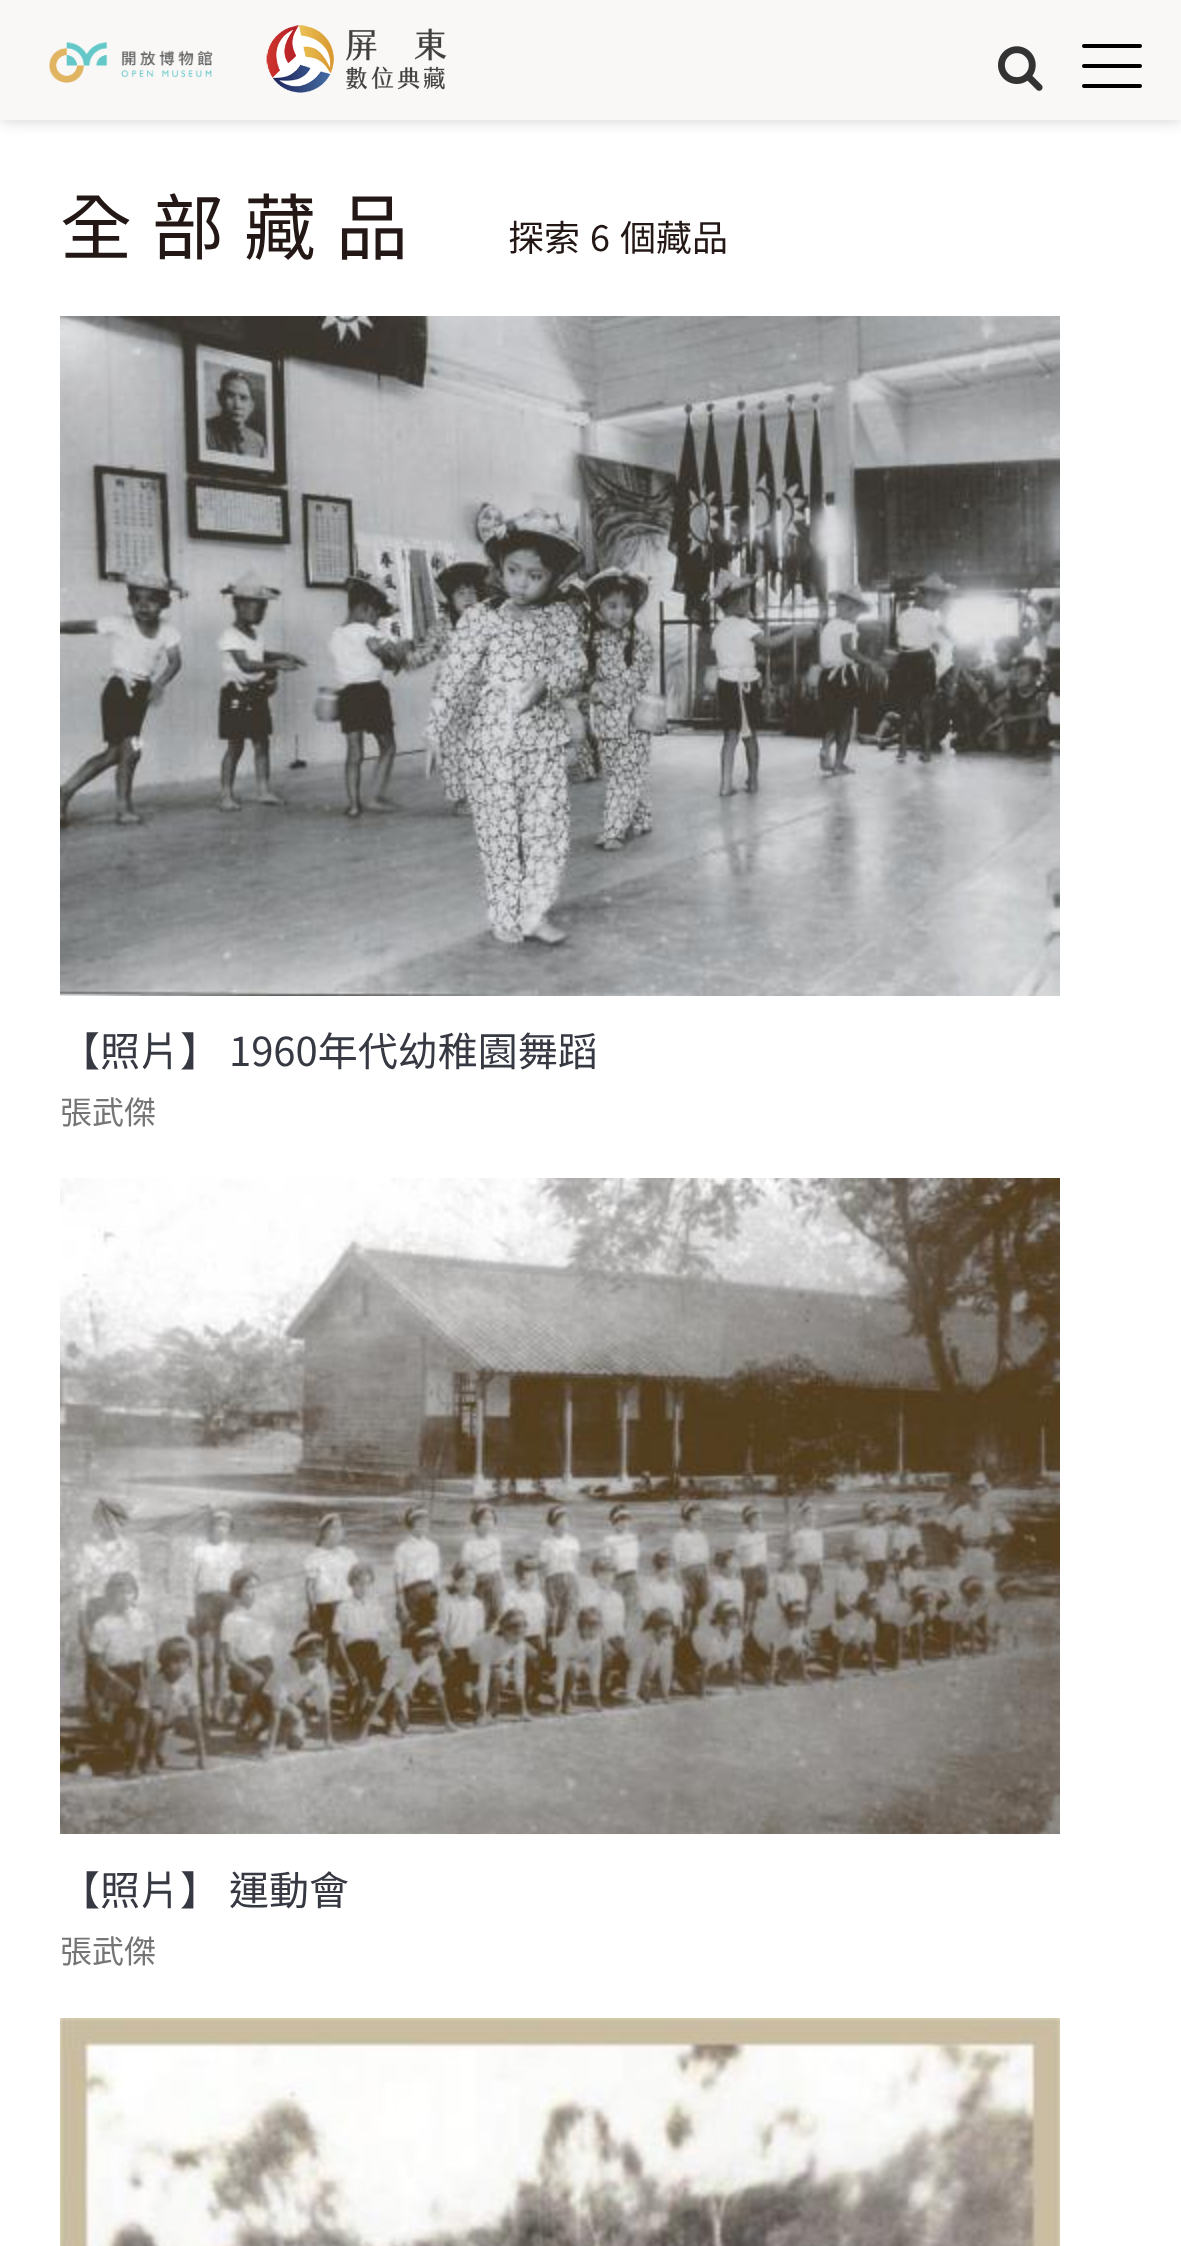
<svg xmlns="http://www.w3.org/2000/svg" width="1181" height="2246">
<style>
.a{font:72px Noto Sans TC;letter-spacing:20px;fill:#231815}
.b{font:36px Noto Sans TC;fill:#231815}
.c{font:40px Noto Sans TC;fill:#363942}
.d{font:32px Noto Sans TC;fill:#757575}
</style>
<rect width="100%" height="100%" fill="#fff"/>
<path fill="#cfcfcf" filter="blur(8px)" d="M0 0h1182v120H0z"/>
<path fill="#f9f8f7" d="M0 0h1181v120H0z"/>
<image href="1.png" x="49" y="42" width="164" height="41"/>
<image href="2.png" x="266" y="25" width="181" height="68"/>
<image href="3.png" x="998" y="46" width="45" height="45"/>
<rect fill="#000" x="1082" y="84" width="60" height="4" rx="2"/>
<rect fill="#000" x="1082" y="44" width="60" height="4" rx="2"/>
<rect fill="#000" x="1082" y="64" width="60" height="4" rx="2"/>
<image href="4.png" x="60" y="316" width="1000" height="680"/>
<image href="5.png" x="60" y="1178" width="1000" height="656"/>
<image href="6.png" x="60" y="2018" width="1000" height="228"/>
<text class="a" x="60" y="254">全部藏品</text>
<text class="b" x="508" y="251">探索</text>
<text class="b" x="590" y="251">6</text>
<text class="b" x="620" y="251">個藏品</text>
<text class="c" x="60" y="1066">【照片】 1960年代幼稚園舞蹈</text>
<text class="d" x="60" y="1124">張武傑</text>
<text class="c" x="60" y="1905">【照片】 運動會</text>
<text class="d" x="60" y="1963">張武傑</text>
</svg>
